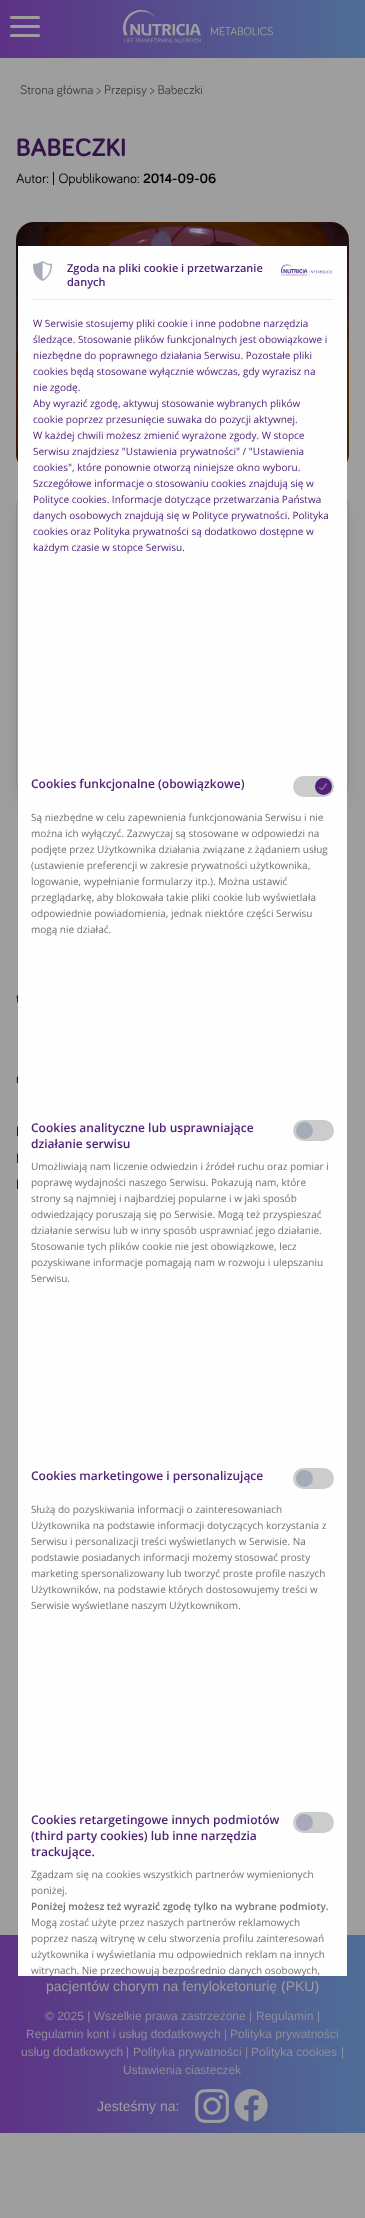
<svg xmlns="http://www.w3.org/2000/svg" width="365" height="2218">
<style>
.a{font:13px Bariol;fill:#3f3f3f}
.b{font:bold 26px Bariol;fill:#32134a}
.c{font:14px Bariol;fill:#000}
.d{font:bold 14px Bariol;fill:#000}
.e{font:600 11px Open Sans;fill:#512178}
.f{font:10px Open Sans;fill:#512178}
.g{font:600 12px Open Sans;fill:#512178}
.h{font:10px Open Sans;fill:#707070}
.i{font:600 10px Open Sans;fill:#707070}
.j{font:14px Liberation Sans;fill:#9e9e9e}
.k{font:12px Liberation Sans;fill:#908d9a}
.l{font:12px Liberation Sans;fill:#8f939c}
</style>
<defs>
<linearGradient id="g1" gradientUnits="userSpaceOnUse" x1="0" y1="29" x2="365" y2="29"><stop offset="0" stop-color="#5d3185"/><stop offset="1" stop-color="#4e6e97"/></linearGradient>
<linearGradient id="g2" gradientUnits="userSpaceOnUse" x1="0" y1="2034" x2="365" y2="2034"><stop offset="0" stop-color="#5d3285"/><stop offset="1" stop-color="#4e6e98"/></linearGradient>
<clipPath id="clip1"><path d="M31 1866h303v110H31z"/></clipPath>
</defs>
<rect width="100%" height="100%" fill="#9e9e9e"/>
<path fill="url(#g1)" d="M0 0h365v58H0z"/>
<rect fill="#9e9e9e" x="10" y="16" width="30" height="3" rx="1.5"/>
<rect fill="#9e9e9e" x="10" y="25" width="30" height="3" rx="1.5"/>
<rect fill="#9e9e9e" x="10" y="34" width="30" height="3" rx="1.5"/>
<image href="1.png" x="123" y="10" width="150" height="38"/>
<image href="2.png" x="16" y="222" width="333" height="240"/>
<rect fill="#0000001a" filter="blur(7.5px)" x="19" y="505" width="327" height="300" rx="13"/>
<rect fill="#9e9e9e" stroke="#8b8b8b" x="16.5" y="492.5" width="332" height="305" rx="15.5"/>
<path fill="url(#g2)" d="M0 1935h365v198H0z"/>
<image href="6.png" x="195" y="2089" width="34" height="34"/>
<image href="7.png" x="234" y="2089" width="34" height="33"/>
<text class="a" x="20" y="94">Strona główna &gt; Przepisy &gt; Babeczki</text>
<text class="b" x="16" y="156">BABECZKI</text>
<text class="c" x="16" y="183">Autor: | Opublikowano:</text>
<text class="d" x="143" y="183">2014-09-06</text>
<text class="c" x="16" y="1003">t</text>
<text class="c" x="16" y="1083">r</text>
<text class="c" x="16" y="1136">I</text>
<text class="c" x="16" y="1163">I</text>
<text class="c" x="16" y="1189">I</text>
<path fill="#fefefe" d="M18 246h329v1730H18z"/>
<path fill="#e9e9e9" d="M33 299h299v1H33z"/>
<image href="3.png" x="33" y="261" width="19" height="20"/>
<text class="e" x="67" y="272">Zgoda na pliki cookie i przetwarzanie</text>
<text class="e" x="67" y="286">danych</text>
<image href="4.png" x="281" y="264" width="51" height="13"/>
<text class="f" x="33" y="327">W Serwisie stosujemy pliki cookie i inne podobne narzędzia</text>
<text class="f" x="33" y="343">śledzące. Stosowanie plików funkcjonalnych jest obowiązkowe i</text>
<text class="f" x="33" y="359">niezbędne do poprawnego działania Serwisu. Pozostałe pliki</text>
<text class="f" x="33" y="375">cookies będą stosowane wyłącznie wówczas, gdy wyrazisz na</text>
<text class="f" x="33" y="391">nie zgodę.</text>
<text class="f" x="33" y="407">Aby wyrazić zgodę, aktywuj stosowanie wybranych plików</text>
<text class="f" x="33" y="423">cookie poprzez przesunięcie suwaka do pozycji aktywnej.</text>
<text class="f" x="33" y="439">W każdej chwili możesz zmienić wyrażone zgody. W stopce</text>
<text class="f" x="33" y="455">Serwisu znajdziesz "Ustawienia prywatności" / "Ustawienia</text>
<text class="f" x="33" y="471">cookies", które ponownie otworzą niniejsze okno wyboru.</text>
<text class="f" x="33" y="487">Szczegółowe informacje o stosowaniu cookies znajdują się w</text>
<text class="f" x="33" y="503">Polityce cookies. Informacje dotyczące przetwarzania Państwa</text>
<text class="f" x="33" y="519">danych osobowych znajdują się w Polityce prywatności. Polityka</text>
<text class="f" x="33" y="535">cookies oraz Polityka prywatności są dodatkowo dostępne w</text>
<text class="f" x="33" y="551">każdym czasie w stopce Serwisu.</text>
<text class="g" x="31" y="788">Cookies funkcjonalne (obowiązkowe)</text>
<rect fill="#ccc" x="293" y="776" width="41" height="21" rx="10.5"/>
<circle fill="#512178" cx="323.5" cy="786.5" r="8.5"/>
<image href="5.png" x="319" y="783" width="8" height="7"/>
<text class="h" x="31" y="821">Są niezbędne w celu zapewnienia funkcjonowania Serwisu i nie</text>
<text class="h" x="31" y="837">można ich wyłączyć. Zazwyczaj są stosowane w odpowiedzi na</text>
<text class="h" x="31" y="853">podjęte przez Użytkownika działania związane z żądaniem usług</text>
<text class="h" x="31" y="869">(ustawienie preferencji w zakresie prywatności użytkownika,</text>
<text class="h" x="31" y="885">logowanie, wypełnianie formularzy itp.). Można ustawić</text>
<text class="h" x="31" y="901">przeglądarkę, aby blokowała takie pliki cookie lub wyświetlała</text>
<text class="h" x="31" y="917">odpowiednie powiadomienia, jednak niektóre części Serwisu</text>
<text class="h" x="31" y="933">mogą nie działać.</text>
<text class="g" x="31" y="1132">Cookies analityczne lub usprawniające</text>
<text class="g" x="31" y="1148">działanie serwisu</text>
<rect fill="#ccc" x="293" y="1120" width="41" height="21" rx="10.5"/>
<circle fill="#a5aab9" cx="304.5" cy="1130.5" r="8.5"/>
<text class="h" x="31" y="1170">Umożliwiają nam liczenie odwiedzin i źródeł ruchu oraz pomiar i</text>
<text class="h" x="31" y="1186">poprawę wydajności naszego Serwisu. Pokazują nam, które</text>
<text class="h" x="31" y="1202">strony są najmniej i najbardziej popularne i w jaki sposób</text>
<text class="h" x="31" y="1218">odwiedzający poruszają się po Serwisie. Mogą też przyspieszać</text>
<text class="h" x="31" y="1234">działanie serwisu lub w inny sposób usprawniać jego działanie.</text>
<text class="h" x="31" y="1250">Stosowanie tych plików cookie nie jest obowiązkowe, lecz</text>
<text class="h" x="31" y="1266">pozyskiwane informacje pomagają nam w rozwoju i ulepszaniu</text>
<text class="h" x="31" y="1282">Serwisu.</text>
<text class="g" x="31" y="1480">Cookies marketingowe i personalizujące</text>
<rect fill="#ccc" x="293" y="1468" width="41" height="21" rx="10.5"/>
<circle fill="#a5aab9" cx="304.5" cy="1478.5" r="8.5"/>
<text class="h" x="31" y="1513">Służą do pozyskiwania informacji o zainteresowaniach</text>
<text class="h" x="31" y="1529">Użytkownika na podstawie informacji dotyczących korzystania z</text>
<text class="h" x="31" y="1545">Serwisu i personalizacji treści wyświetlanych w Serwisie. Na</text>
<text class="h" x="31" y="1561">podstawie posiadanych informacji możemy stosować prosty</text>
<text class="h" x="31" y="1577">marketing spersonalizowany lub tworzyć proste profile naszych</text>
<text class="h" x="31" y="1593">Użytkowników, na podstawie których dostosowujemy treści w</text>
<text class="h" x="31" y="1609">Serwisie wyświetlane naszym Użytkownikom.</text>
<text class="g" x="31" y="1824">Cookies retargetingowe innych podmiotów</text>
<text class="g" x="31" y="1840">(third party cookies) lub inne narzędzia</text>
<text class="g" x="31" y="1856">trackujące.</text>
<rect fill="#ccc" x="293" y="1812" width="41" height="21" rx="10.5"/>
<circle fill="#a5aab9" cx="304.5" cy="1822.5" r="8.5"/>
<text class="h" x="31" y="1878">Zgadzam się na cookies wszystkich partnerów wymienionych</text>
<text class="h" x="31" y="1894">poniżej.</text>
<text class="i" x="31" y="1910">Poniżej możesz też wyrazić zgodę tylko na wybrane podmioty.</text>
<text class="h" x="31" y="1926">Mogą zostać użyte przez naszych partnerów reklamowych</text>
<text class="h" x="31" y="1942">poprzez naszą witrynę w celu stworzenia profilu zainteresowań</text>
<text class="h" x="31" y="1958">użytkownika i wyświetlania mu odpowiednich reklam na innych</text>
<g clip-path="url(#clip1)">
<text class="h" x="31" y="1974">witrynach. Nie przechowują bezpośrednio danych osobowych,</text>
</g>
<text class="j" x="46" y="1991">pacjentów chorym na fenyloketonurię (PKU)</text>
<text class="k" x="45" y="2020">© 2025 | Wszelkie prawa zastrzeżone |</text>
<text class="k" x="256" y="2020">Regulamin</text>
<text class="l" x="317" y="2020">|</text>
<text class="k" x="26" y="2038">Regulamin kont i usług dodatkowych</text>
<text class="k" x="224" y="2038">|</text>
<text class="k" x="230" y="2038">Polityka prywatności</text>
<text class="k" x="21" y="2056">usług dodatkowych</text>
<text class="k" x="126" y="2056">|</text>
<text class="k" x="133" y="2056">Polityka prywatności</text>
<text class="k" x="245" y="2056">|</text>
<text class="k" x="251" y="2056">Polityka cookies</text>
<text class="l" x="341" y="2056">|</text>
<text class="k" x="123" y="2074">Ustawienia ciasteczek</text>
<text class="j" x="97" y="2111">Jesteśmy na:</text>
</svg>
